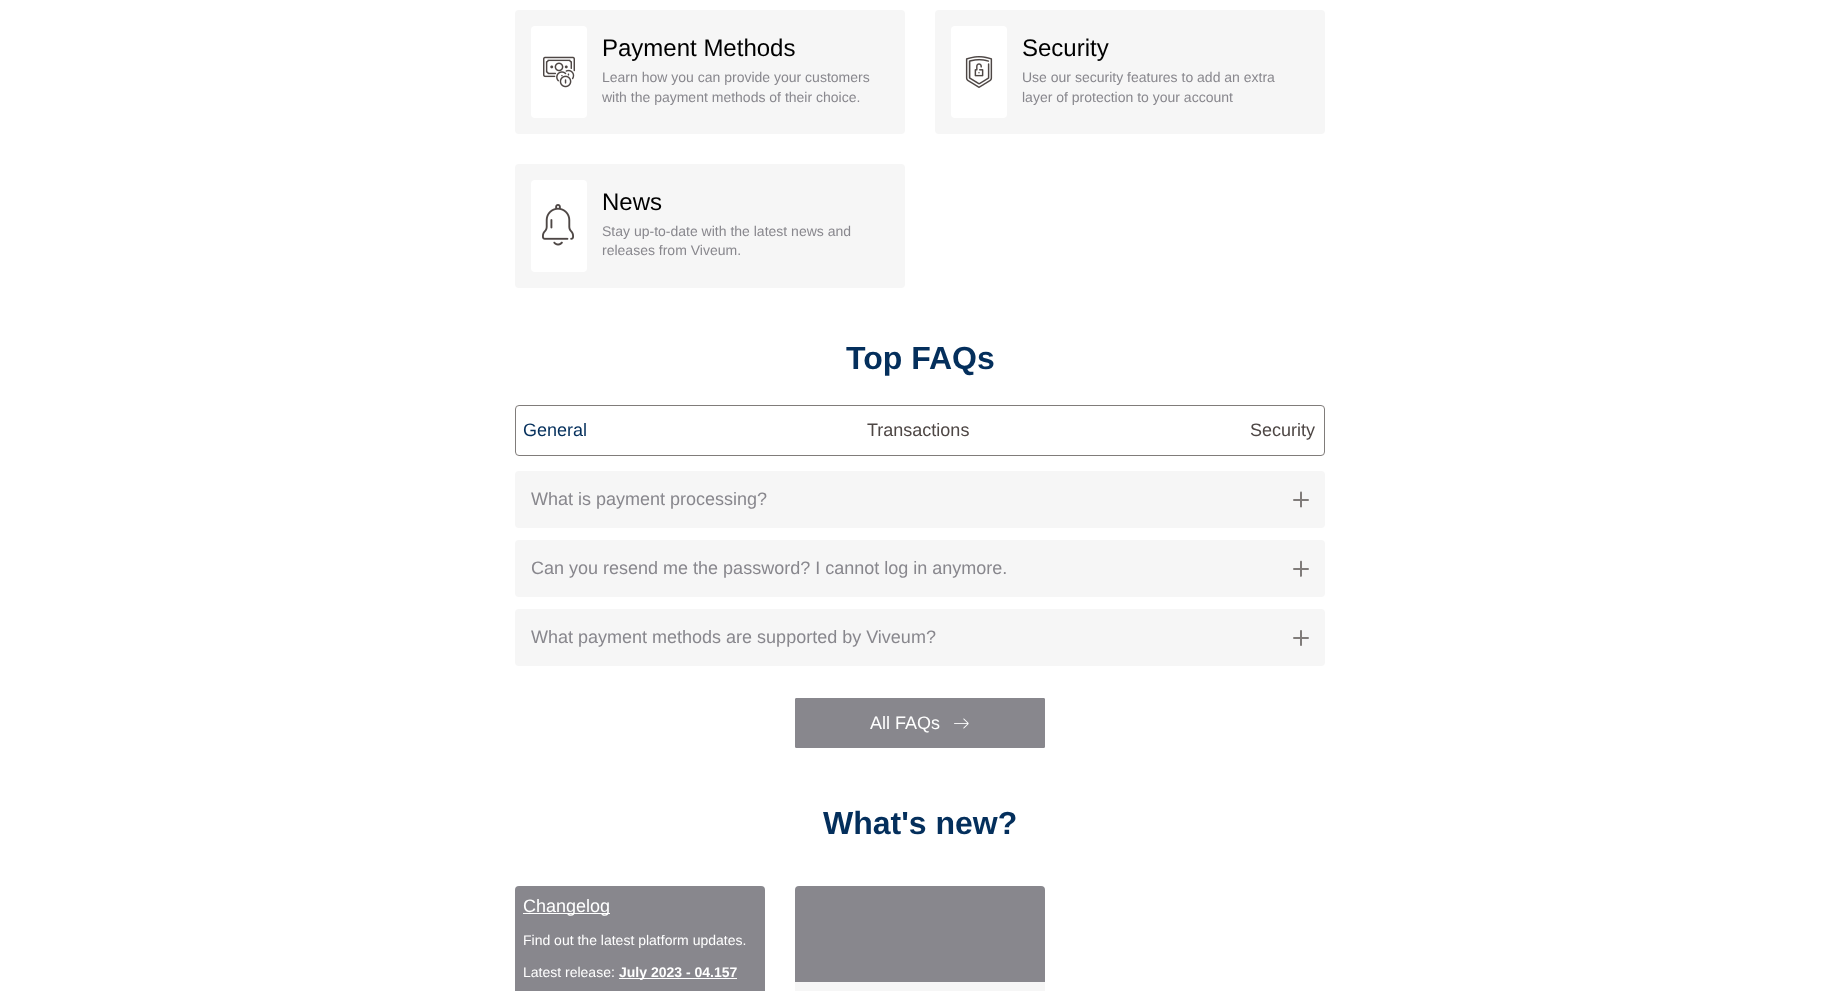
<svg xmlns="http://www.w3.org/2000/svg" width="1840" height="991">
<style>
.a{font:24px Liberation Sans;fill:#000}
.b{font:14px Liberation Sans;fill:#88878d}
.c{font:bold 32px Liberation Sans;fill:#042f5c}
.d{font:18px Liberation Sans;fill:#042f5c}
.e{font:18px Liberation Sans;fill:#4e4745}
.f{font:18px Liberation Sans;fill:#88878d}
.g{font:18px Liberation Sans;fill:#fff}
.h{font:14px Liberation Sans;fill:#fff}
.i{font:bold 14px Liberation Sans;fill:#fff}
</style>
<rect width="100%" height="100%" fill="#fff"/>
<rect fill="#f6f6f6" x="515" y="10" width="390" height="124" rx="4"/>
<rect fill="#fff" x="531" y="26" width="56" height="92" rx="4"/>
<image href="1.png" x="543" y="56" width="32" height="32"/>
<rect fill="#f6f6f6" x="935" y="10" width="390" height="124" rx="4"/>
<rect fill="#fff" x="951" y="26" width="56" height="92" rx="4"/>
<image href="2.png" x="965" y="56" width="28" height="32"/>
<rect fill="#f6f6f6" x="515" y="164" width="390" height="124" rx="4"/>
<rect fill="#fff" x="531" y="180" width="56" height="92" rx="4"/>
<image href="3.png" x="542" y="204" width="32" height="42"/>
<rect fill="none" stroke="#807c7a" x="515.5" y="405.5" width="809" height="50" rx="3.5"/>
<rect fill="#f6f6f6" x="515" y="471" width="810" height="57" rx="4"/>
<rect fill="#807c7a" x="1293" y="499" width="16" height="2" rx="1"/>
<path fill="#807c7a" d="M1302 492.5v14.5c-.5 .5-1.5 .5-2 0v-14.5c0-1.5 2-1.5 2 0z"/>
<rect fill="#f6f6f6" x="515" y="540" width="810" height="57" rx="4"/>
<rect fill="#807c7a" x="1293" y="568" width="16" height="2" rx="1"/>
<path fill="#807c7a" d="M1302 561.5v14.5c-.5 1-1.5 1-2 .5v-15c0-1 2-1 2 0z"/>
<rect fill="#f6f6f6" x="515" y="609" width="810" height="57" rx="4"/>
<rect fill="#807c7a" x="1293" y="637" width="16" height="2" rx="1"/>
<path fill="#807c7a" d="M1302 631v14.5c-.5 .5-1.5 .5-2 0v-14.5c0-1.5 2-1.5 2 0z"/>
<rect fill="#88878d" stroke="#88878d" x="795.5" y="698.5" width="249" height="49" rx="0.5"/>
<image href="4.png" x="954" y="718" width="15" height="11"/>
<rect fill="#88878d" x="515" y="886" width="250" height="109" rx="4"/>
<path fill="#fff" d="M523 913h87v1H523z"/>
<path fill="#fff" d="M619 978h118v1H619z"/>
<rect fill="#88878d" x="795" y="886" width="250" height="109" rx="4"/>
<path fill="#f6f6f6" d="M795 982h250v9H795z"/>
<text class="a" x="602" y="56">Payment Methods</text>
<text class="b" x="602" y="82">Learn how you can provide your customers</text>
<text class="b" x="602" y="102">with the payment methods of their choice.</text>
<text class="a" x="1022" y="56">Security</text>
<text class="b" x="1022" y="82">Use our security features to add an extra</text>
<text class="b" x="1022" y="102">layer of protection to your account</text>
<text class="a" x="602" y="210">News</text>
<text class="b" x="602" y="236">Stay up-to-date with the latest news and</text>
<text class="b" x="602" y="255">releases from Viveum.</text>
<text class="c" x="846" y="369">Top FAQs</text>
<text class="d" x="523" y="436">General</text>
<text class="e" x="867" y="436">Transactions</text>
<text class="e" x="1250" y="436">Security</text>
<text class="f" x="531" y="505">What is payment processing?</text>
<text class="f" x="531" y="574">Can you resend me the password? I cannot log in anymore.</text>
<text class="f" x="531" y="643">What payment methods are supported by Viveum?</text>
<text class="g" x="870" y="729">All FAQs</text>
<text class="c" x="823" y="834">What's new?</text>
<text class="g" x="523" y="912">Changelog</text>
<text class="h" x="523" y="945">Find out the latest platform updates.</text>
<text class="h" x="523" y="977">Latest release:</text>
<text class="i" x="619" y="977">July 2023 - 04.157</text>
</svg>
